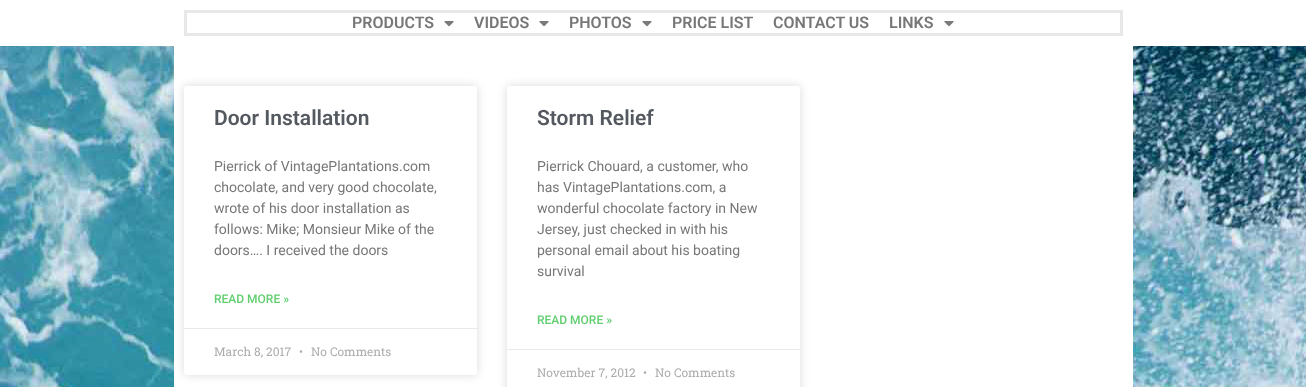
<svg xmlns="http://www.w3.org/2000/svg" width="1306" height="387">
<style>
.a{font:600 16px Roboto;fill:#777}
.b{font:600 21px Roboto;fill:#54595f}
.c{font:14px Roboto;fill:#777}
.d{font:500 12px Roboto;fill:#61ce70}
.e{font:12px Roboto Slab;fill:#adadad}
</style>
<rect width="100%" height="100%" fill="#fff"/>
<path fill="none" stroke="#e8e8e8" stroke-width="3" d="M185.5 11.5h936v23h-936z"/>
<image href="1.png" x="444" y="21" width="10" height="6"/>
<image href="1.png" x="539" y="21" width="10" height="6"/>
<image href="1.png" x="642" y="21" width="10" height="6"/>
<image href="1.png" x="944" y="21" width="10" height="6"/>
<image href="2.png" x="0" y="46" width="1306" height="341"/>
<path fill="#fff" d="M174 46h959v341H174z"/>
<rect fill="#00000026" filter="blur(5px)" x="184" y="86" width="293" height="289" rx="3"/>
<rect fill="#fff" x="184" y="86" width="293" height="289" rx="3"/>
<path fill="#eaeaea" d="M184 328h293v1H184z"/>
<rect fill="#00000026" filter="blur(5px)" x="507" y="86" width="293" height="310" rx="3"/>
<rect fill="#fff" x="507" y="86" width="293" height="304" rx="3"/>
<path fill="#eaeaea" d="M507 349h293v1H507z"/>
<text class="a" x="352" y="28">PRODUCTS</text>
<text class="a" x="474" y="28">VIDEOS</text>
<text class="a" x="569" y="28">PHOTOS</text>
<text class="a" x="672" y="28">PRICE LIST</text>
<text class="a" x="773" y="28">CONTACT US</text>
<text class="a" x="889" y="28">LINKS</text>
<text class="b" x="214" y="125">Door Installation</text>
<text class="c" x="214" y="171">Pierrick of VintagePlantations.com</text>
<text class="c" x="214" y="192">chocolate, and very good chocolate,</text>
<text class="c" x="214" y="213">wrote of his door installation as</text>
<text class="c" x="214" y="234">follows: Mike; Monsieur Mike of the</text>
<text class="c" x="214" y="255">doors…. I received the doors</text>
<text class="d" x="214" y="303">READ MORE »</text>
<text class="e" x="214" y="356">March 8, 2017</text>
<text class="e" x="299" y="356">•</text>
<text class="e" x="311" y="356">No Comments</text>
<text class="b" x="537" y="125">Storm Relief</text>
<text class="c" x="537" y="171">Pierrick Chouard, a customer, who</text>
<text class="c" x="537" y="192">has VintagePlantations.com, a</text>
<text class="c" x="537" y="213">wonderful chocolate factory in New</text>
<text class="c" x="537" y="234">Jersey, just checked in with his</text>
<text class="c" x="537" y="255">personal email about his boating</text>
<text class="c" x="537" y="276">survival</text>
<text class="d" x="537" y="324">READ MORE »</text>
<text class="e" x="537" y="377">November 7, 2012</text>
<text class="e" x="643" y="377">•</text>
<text class="e" x="655" y="377">No Comments</text>
</svg>
